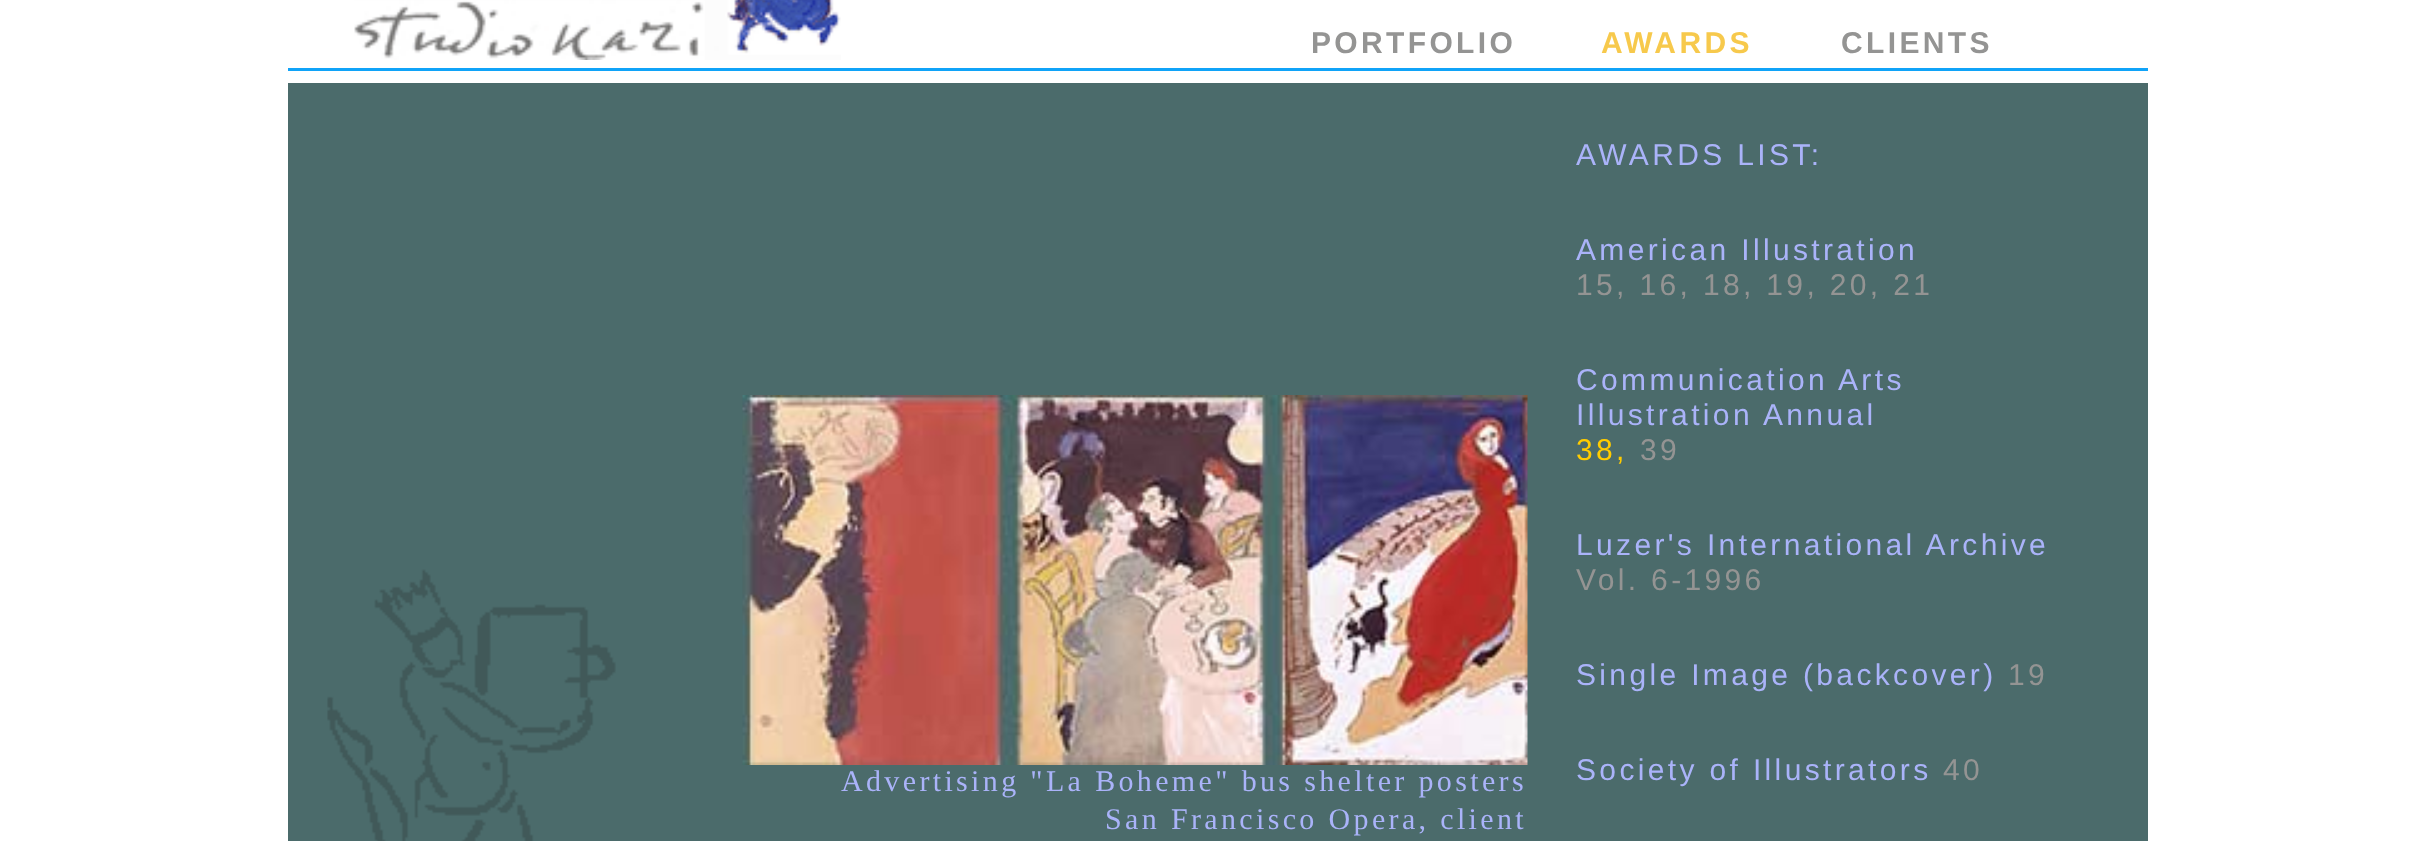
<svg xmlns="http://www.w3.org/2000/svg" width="2412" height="841">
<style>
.a{font:bold 30px Liberation Sans;letter-spacing:3.35px;fill:#949493}
.b{font:bold 30px Liberation Sans;letter-spacing:3.35px;fill:#f7c94c}
.c{font:30px Liberation Sans;letter-spacing:3.35px;fill:#aab3f9}
.d{font:30px Liberation Sans;letter-spacing:3.35px;fill:#949493}
.e{font:30px Liberation Sans;letter-spacing:3.35px;fill:#fc0}
.f{font:30px Liberation Serif;letter-spacing:3.35px;fill:#aab3f9}
</style>
<rect width="100%" height="100%" fill="#fff"/>
<image href="1.png" x="354" y="0" width="487" height="60"/>
<path fill="#10a3f8" d="M288 68h1860v3H288z"/>
<path fill="#4b6b6b" d="M288 83h1860v758H288z"/>
<image href="2.png" x="327" y="569" width="289" height="272"/>
<image href="3.png" x="742" y="395" width="786" height="370"/>
<text class="a" x="1311" y="53">PORTFOLIO</text>
<text class="b" x="1601" y="53">AWARDS</text>
<text class="a" x="1841" y="53">CLIENTS</text>
<text class="c" x="1576" y="165">AWARDS LIST:</text>
<text class="c" x="1576" y="260">American Illustration</text>
<text class="d" x="1576" y="295">15, 16, 18, 19, 20, 21</text>
<text class="c" x="1576" y="390">Communication Arts</text>
<text class="c" x="1576" y="425">Illustration Annual</text>
<text class="e" x="1576" y="460">38,</text>
<text class="d" x="1640" y="460">39</text>
<text class="c" x="1576" y="555">Luzer's International Archive</text>
<text class="d" x="1576" y="590">Vol. 6-1996</text>
<text class="c" x="1576" y="685">Single Image (backcover)</text>
<text class="d" x="2008" y="685">19</text>
<text class="c" x="1576" y="780">Society of Illustrators</text>
<text class="d" x="1943" y="780">40</text>
<text class="f" x="841" y="791">Advertising "La Boheme" bus shelter posters</text>
<text class="f" x="1105" y="829">San Francisco Opera, client</text>
</svg>
